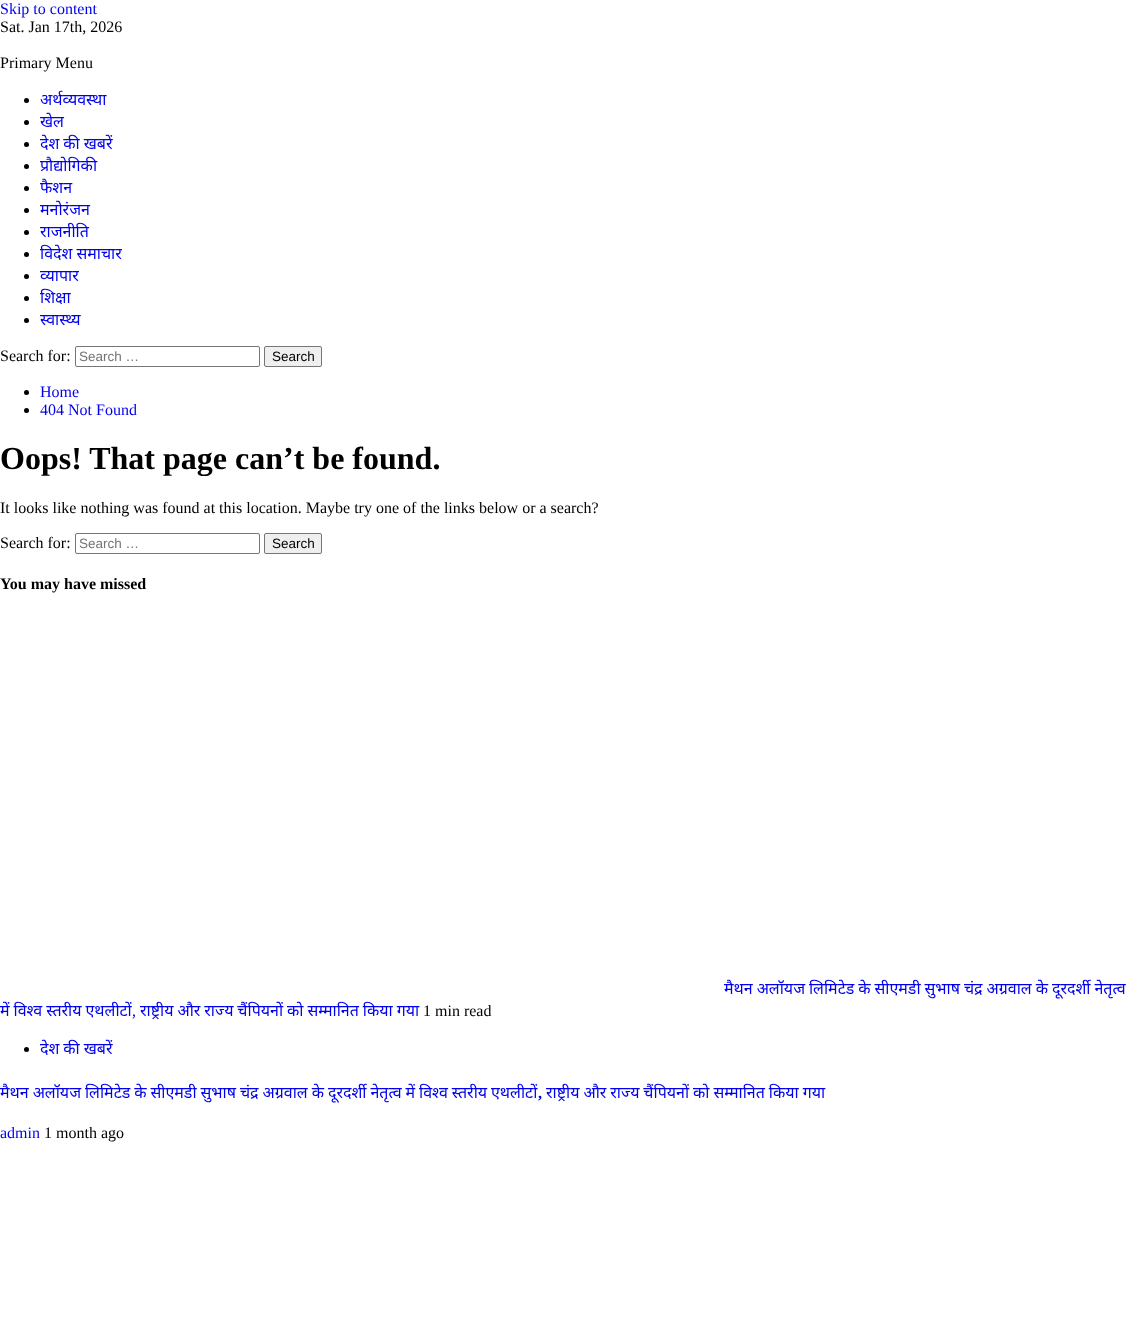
<svg xmlns="http://www.w3.org/2000/svg" width="1127" height="1334">
<style>
.a{font:16px Liberation Serif;fill:#00e}
.b{font:16px Liberation Serif;fill:#000}
.c{font:16px Noto Sans;fill:#00e}
.d{font:13.5px Liberation Sans;fill:#757575}
.e{font:13.5px Liberation Sans;fill:#000}
.f{font:bold 32px Liberation Serif;fill:#000}
.g{font:bold 16px Liberation Serif;fill:#000}
.h{font:bold 16px Liberation Serif;fill:#00e}
</style>
<rect width="100%" height="100%" fill="#fff"/>
<circle fill="#000" cx="26.5" cy="100.5" r="2.5"/>
<circle fill="#000" cx="26.5" cy="122.5" r="2.5"/>
<circle fill="#000" cx="26.5" cy="144.5" r="2.5"/>
<circle fill="#000" cx="26.5" cy="166.5" r="2.5"/>
<circle fill="#000" cx="26.5" cy="188.5" r="2.5"/>
<circle fill="#000" cx="26.5" cy="210.5" r="2.5"/>
<circle fill="#000" cx="26.5" cy="232.5" r="2.5"/>
<circle fill="#000" cx="26.5" cy="254.5" r="2.5"/>
<circle fill="#000" cx="26.5" cy="276.5" r="2.5"/>
<circle fill="#000" cx="26.5" cy="298.5" r="2.5"/>
<circle fill="#000" cx="26.5" cy="320.5" r="2.5"/>
<rect fill="none" stroke="#767676" x="75.5" y="346.5" width="184" height="20" rx="1.5"/>
<rect fill="#efefef" stroke="#767676" x="264.5" y="346.5" width="57" height="20" rx="1.5"/>
<circle fill="#000" cx="26.5" cy="392.5" r="2.5"/>
<circle fill="#000" cx="26.5" cy="410.5" r="2.5"/>
<rect fill="none" stroke="#767676" x="75.5" y="533.5" width="184" height="20" rx="1.5"/>
<rect fill="#efefef" stroke="#767676" x="264.5" y="533.5" width="57" height="20" rx="1.5"/>
<circle fill="#000" cx="26.5" cy="1049.5" r="2.5"/>
<text class="a" x="0" y="14">Skip to content</text>
<text class="b" x="0" y="32">Sat. Jan 17th, 2026</text>
<text class="b" x="0" y="68">Primary Menu</text>
<text class="c" x="40" y="105">अर्थव्यवस्था</text>
<text class="c" x="40" y="127">खेल</text>
<text class="c" x="40" y="149" word-spacing="-0.2">देश की खबरें</text>
<text class="c" x="40" y="171">प्रौद्योगिकी</text>
<text class="c" x="40" y="193">फैशन</text>
<text class="c" x="40" y="215">मनोरंजन</text>
<text class="c" x="40" y="237">राजनीति</text>
<text class="c" x="40" y="259" word-spacing="-0.2">विदेश समाचार</text>
<text class="c" x="40" y="281">व्यापार</text>
<text class="c" x="40" y="303">शिक्षा</text>
<text class="c" x="40" y="325">स्वास्थ्य</text>
<text class="b" x="0" y="361">Search for:</text>
<text class="d" x="79" y="361">Search …</text>
<text class="e" x="272" y="361">Search</text>
<text class="a" x="40" y="397">Home</text>
<text class="a" x="40" y="415">404 Not Found</text>
<text class="f" x="0" y="469">Oops! That page can’t be found.</text>
<text class="b" x="0" y="513">It looks like nothing was found at this location. Maybe try one of the links below or a search?</text>
<text class="b" x="0" y="548">Search for:</text>
<text class="d" x="79" y="548">Search …</text>
<text class="e" x="272" y="548">Search</text>
<text class="g" x="0" y="589">You may have missed</text>
<text class="c" x="724" y="994" word-spacing="-0.2">मैथन अलॉयज लिमिटेड के सीएमडी सुभाष चंद्र अग्रवाल के दूरदर्शी नेतृत्व</text>
<text class="c" x="0" y="1016" word-spacing="-0.2">में विश्व स्तरीय एथलीटों</text>
<text class="a" x="132" y="1016">,</text>
<text class="c" x="140" y="1016" word-spacing="-0.2">राष्ट्रीय और राज्य चैंपियनों को सम्मानित किया गया</text>
<text class="b" x="423" y="1016">1 min read</text>
<text class="c" x="40" y="1054" word-spacing="-0.2">देश की खबरें</text>
<text class="c" x="0" y="1098" word-spacing="-0.2">मैथन अलॉयज लिमिटेड के सीएमडी सुभाष चंद्र अग्रवाल के दूरदर्शी नेतृत्व में विश्व स्तरीय एथलीटों</text>
<text class="h" x="538" y="1098">,</text>
<text class="c" x="546" y="1098" word-spacing="-0.2">राष्ट्रीय और राज्य चैंपियनों को सम्मानित किया गया</text>
<text class="a" x="0" y="1138">admin</text>
<text class="b" x="44" y="1138">1 month ago</text>
</svg>
